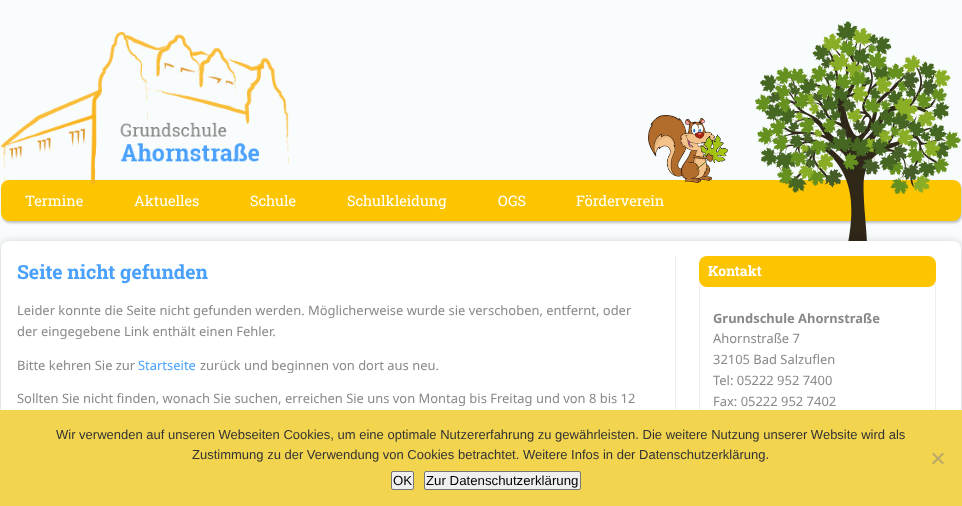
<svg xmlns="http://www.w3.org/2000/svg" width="962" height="506">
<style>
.a{font:14.5px Roboto Slab;fill:#fff}
.b{font:bold 19.5px Roboto Slab;fill:#49a1fb}
.c{font:12.95px Noto Sans;fill:#898989}
.d{font:12.95px Noto Sans;fill:#49a1fb}
.e{font:bold 14px Roboto Slab;fill:#fff}
.f{font:bold 12.95px Noto Sans;fill:#898989}
.g{font:13px Liberation Sans;fill:#333}
.h{font:13.25px Liberation Sans;fill:#000}
</style>
<rect width="100%" height="100%" fill="#f9fcfd"/>
<rect fill="#0a0b0b40" filter="blur(1px)" x="2" y="182" width="960" height="41" rx="8"/>
<rect fill="#fdc500" x="1" y="180" width="960" height="41" rx="8"/>
<image href="1.png" x="1" y="32" width="288" height="154"/>
<image href="2.png" x="648" y="115" width="80" height="68"/>
<image href="3.png" x="755" y="21" width="206" height="220"/>
<rect fill="#0a0b0b33" filter="blur(4px)" x="1" y="242" width="960" height="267" rx="8"/>
<rect fill="#fff" x="1" y="241" width="960" height="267" rx="8"/>
<path fill="#eee" d="M675 256h1v154H675z"/>
<rect fill="#fdc500" x="699" y="256" width="237" height="31" rx="8"/>
<path fill="#eee" fill-rule="evenodd" d="M699 282h237v206c0 3-2 5-5 5h-227c-3 0-5-2-5-5zm1 0h235v206c0 2-2 4-4 4h-227c-2 0-4-2-4-4z"/>
<path fill="#f2d44f" d="M0 410h962v96H0z"/>
<path fill="#b9aa68" d="M942.5 452.5l1.5 1.5l-10.5 10.5l-1.5-1.5z"/>
<path fill="#b9aa68" d="M932 454l1.5-1.5l10.5 10.5l-1.5 1.5z"/>
<rect fill="#efefef" stroke="#767676" x="391.5" y="471.5" width="22" height="18" rx="1.5"/>
<rect fill="#efefef" stroke="#767676" x="424.5" y="471.5" width="156" height="18" rx="1.5"/>
<text class="a" x="25" y="206">Termine</text>
<text class="a" x="134" y="206">Aktuelles</text>
<text class="a" x="250" y="206">Schule</text>
<text class="a" x="347" y="206">Schulkleidung</text>
<text class="a" x="498" y="206">OGS</text>
<text class="a" x="576" y="206">Förderverein</text>
<text class="b" x="17" y="279">Seite nicht gefunden</text>
<text class="c" x="17" y="315">Leider konnte die Seite nicht gefunden werden. Möglicherweise wurde sie verschoben, entfernt, oder</text>
<text class="c" x="17" y="336">der eingegebene Link enthält einen Fehler.</text>
<text class="c" x="17" y="370">Bitte kehren Sie zur</text>
<text class="d" x="138" y="370">Startseite</text>
<text class="c" x="200" y="370">zurück und beginnen von dort aus neu.</text>
<text class="c" x="17" y="403">Sollten Sie nicht finden, wonach Sie suchen, erreichen Sie uns von Montag bis Freitag und von 8 bis 12</text>
<text class="e" x="708" y="276">Kontakt</text>
<text class="f" x="713" y="323">Grundschule Ahornstraße</text>
<text class="c" x="713" y="343">Ahornstraße 7</text>
<text class="c" x="713" y="364">32105 Bad Salzuflen</text>
<text class="c" x="713" y="385">Tel: 05222 952 7400</text>
<text class="c" x="713" y="406">Fax: 05222 952 7402</text>
<text class="g" x="56" y="439">Wir verwenden auf unseren Webseiten Cookies, um eine optimale Nutzererfahrung zu gewährleisten. Die weitere Nutzung unserer Website wird als</text>
<text class="g" x="192" y="459">Zustimmung zu der Verwendung von Cookies betrachtet. Weitere Infos in der Datenschutzerklärung.</text>
<text class="h" x="393" y="485">OK</text>
<text class="h" x="426" y="485">Zur Datenschutzerklärung</text>
</svg>
